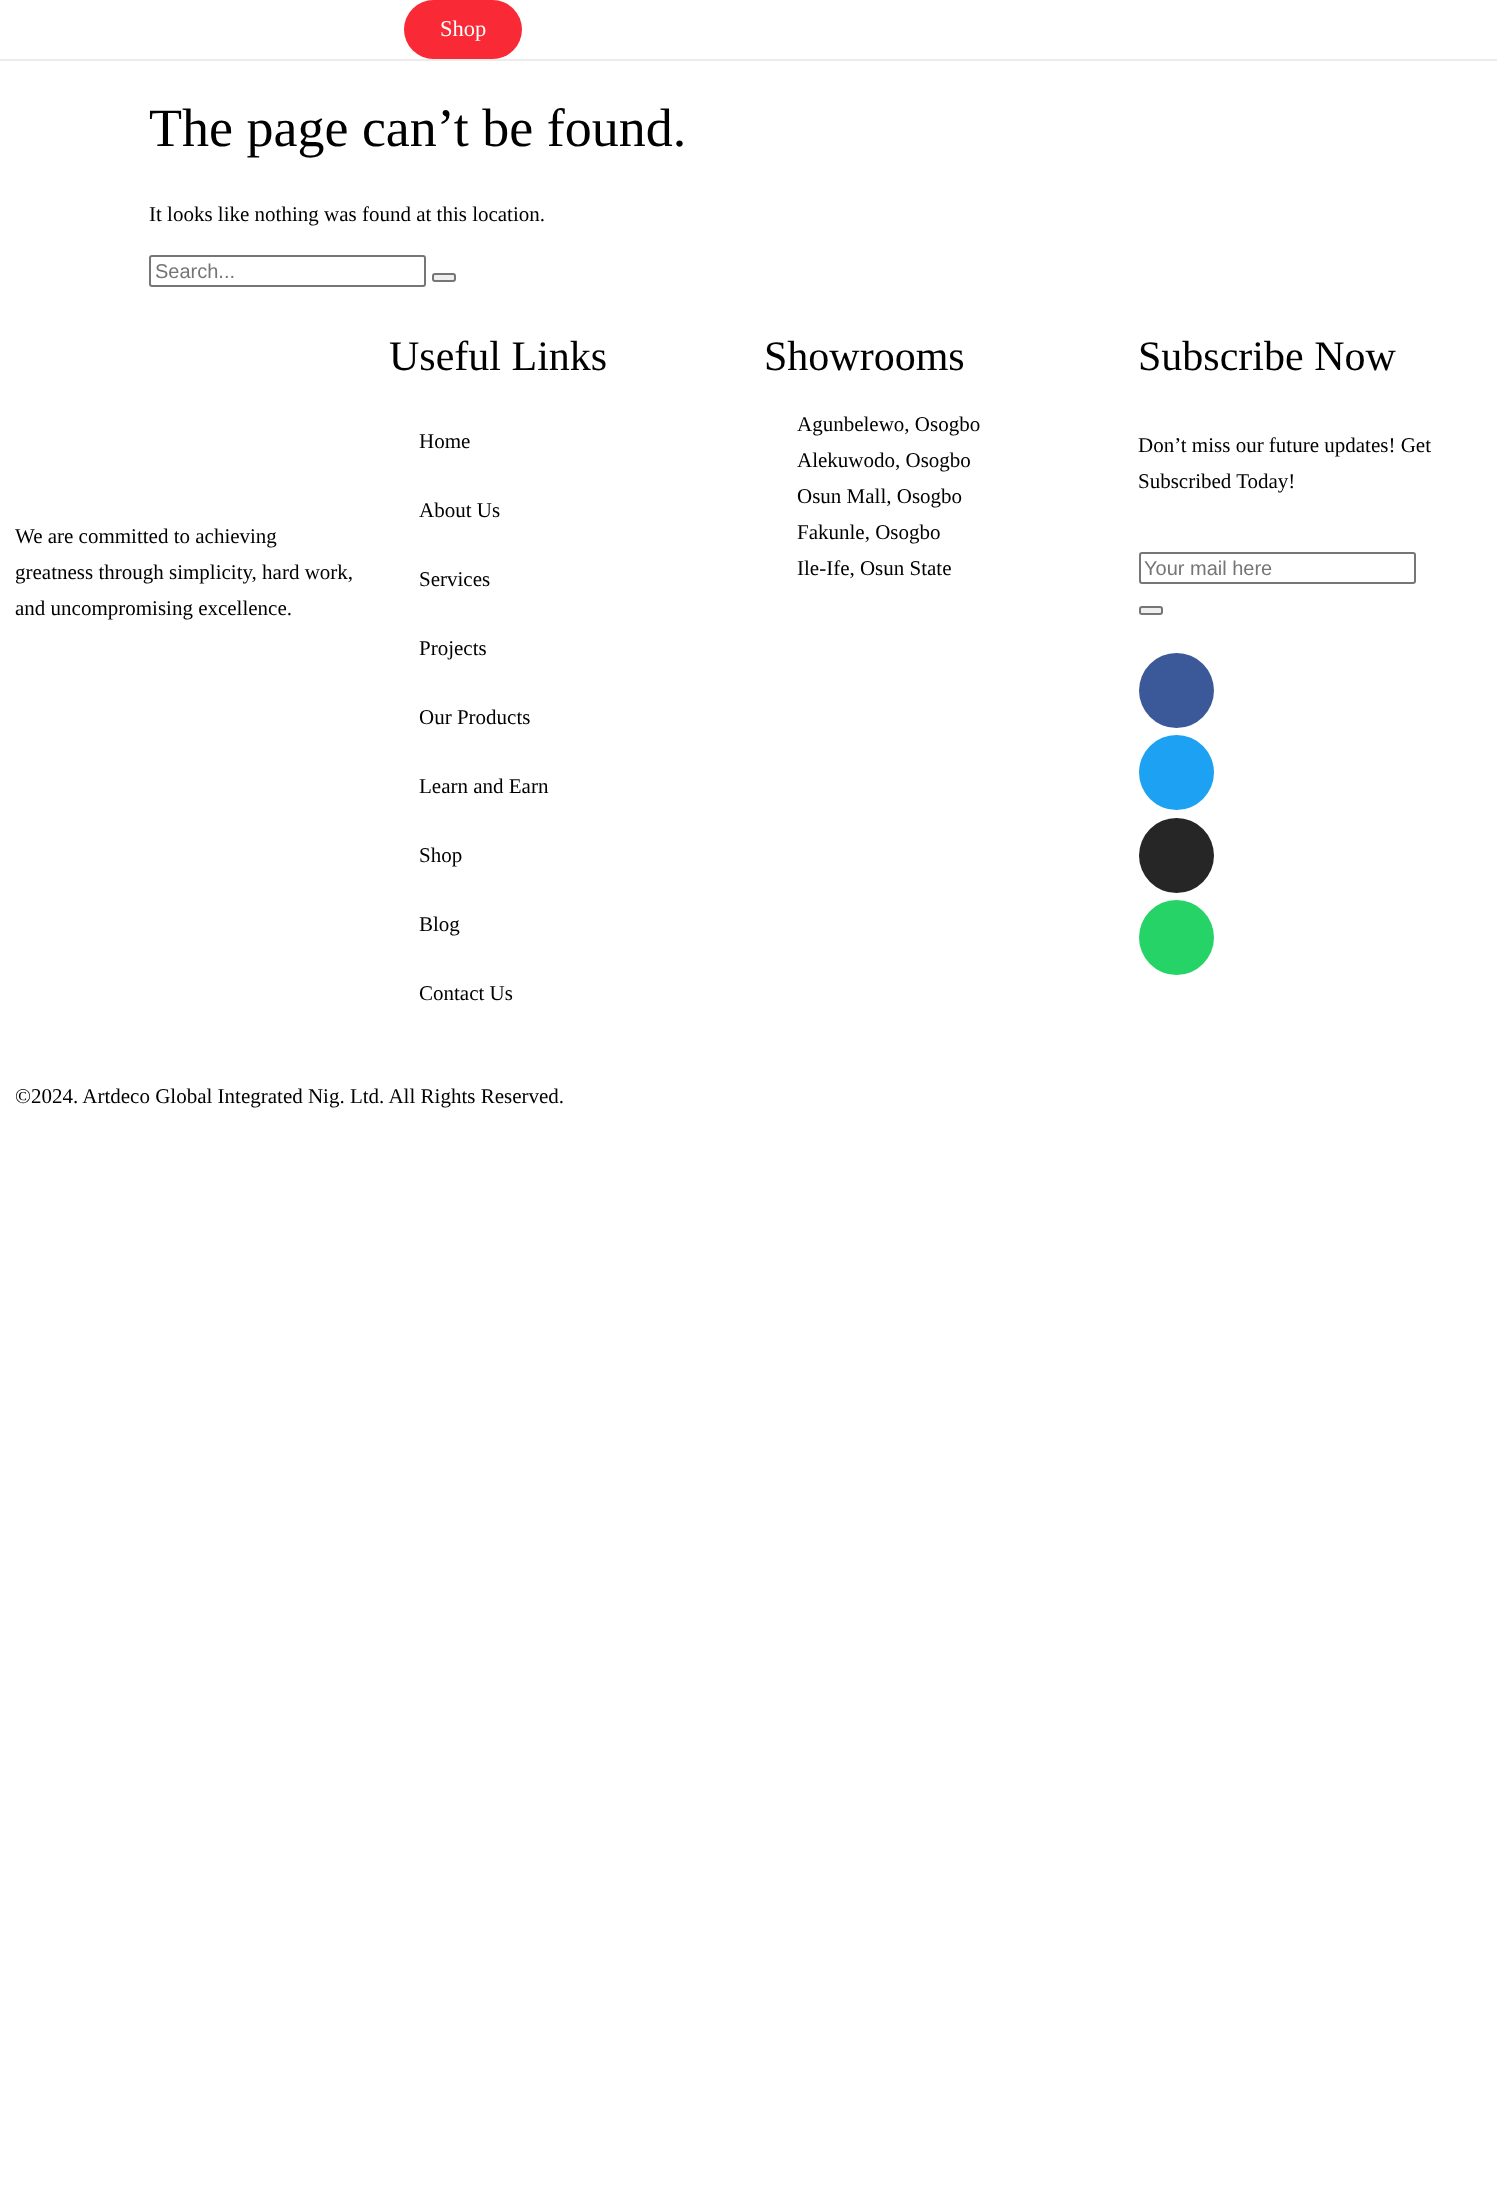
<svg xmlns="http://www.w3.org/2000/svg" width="1497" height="2189">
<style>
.a{font:22.5px Liberation Serif;fill:#fff}
.b{font:54px Liberation Serif;fill:#000}
.c{font:21px Liberation Serif;fill:#000}
.d{font:20px Liberation Sans;fill:#757575}
.e{font:42px Liberation Serif;fill:#000}
</style>
<rect width="100%" height="100%" fill="#fff"/>
<path fill="#ececec" d="M0 59h1497v2H0z"/>
<rect fill="#f92936" x="404" width="118" height="59" rx="29.5"/>
<rect fill="none" stroke="#767676" stroke-width="2" x="150" y="256" width="275" height="30" rx="2"/>
<rect fill="#efefef" stroke="#767676" stroke-width="2" x="433" y="274" width="22" height="7" rx="2"/>
<rect fill="none" stroke="#767676" stroke-width="2" x="1140" y="553" width="275" height="30" rx="2"/>
<rect fill="#efefef" stroke="#767676" stroke-width="2" x="1140" y="607" width="22" height="7" rx="2"/>
<circle fill="#3b5998" cx="1176.5" cy="690.5" r="37.5"/>
<circle fill="#1da1f2" cx="1176.5" cy="772.5" r="37.5"/>
<circle fill="#262626" cx="1176.5" cy="855.5" r="37.5"/>
<circle fill="#25d366" cx="1176.5" cy="937.5" r="37.5"/>
<text class="a" x="440" y="36">Shop</text>
<text class="b" x="149" y="146">The page can’t be found.</text>
<text class="c" x="149" y="221">It looks like nothing was found at this location.</text>
<text class="d" x="155" y="278">Search...</text>
<text class="c" x="15" y="543">We are committed to achieving</text>
<text class="c" x="15" y="579">greatness through simplicity, hard work,</text>
<text class="c" x="15" y="615">and uncompromising excellence.</text>
<text class="e" x="389" y="370">Useful Links</text>
<text class="c" x="419" y="448">Home</text>
<text class="c" x="419" y="517">About Us</text>
<text class="c" x="419" y="586">Services</text>
<text class="c" x="419" y="655">Projects</text>
<text class="c" x="419" y="724">Our Products</text>
<text class="c" x="419" y="793">Learn and Earn</text>
<text class="c" x="419" y="862">Shop</text>
<text class="c" x="419" y="931">Blog</text>
<text class="c" x="419" y="1000">Contact Us</text>
<text class="e" x="764" y="370">Showrooms</text>
<text class="c" x="797" y="431">Agunbelewo, Osogbo</text>
<text class="c" x="797" y="467">Alekuwodo, Osogbo</text>
<text class="c" x="797" y="503">Osun Mall, Osogbo</text>
<text class="c" x="797" y="539">Fakunle, Osogbo</text>
<text class="c" x="797" y="575">Ile-Ife, Osun State</text>
<text class="e" x="1138" y="370">Subscribe Now</text>
<text class="c" x="1138" y="452">Don’t miss our future updates! Get</text>
<text class="c" x="1138" y="488">Subscribed Today!</text>
<text class="d" x="1144" y="575">Your mail here</text>
<text class="c" x="15" y="1103">©2024. Artdeco Global Integrated Nig. Ltd. All Rights Reserved.</text>
</svg>
